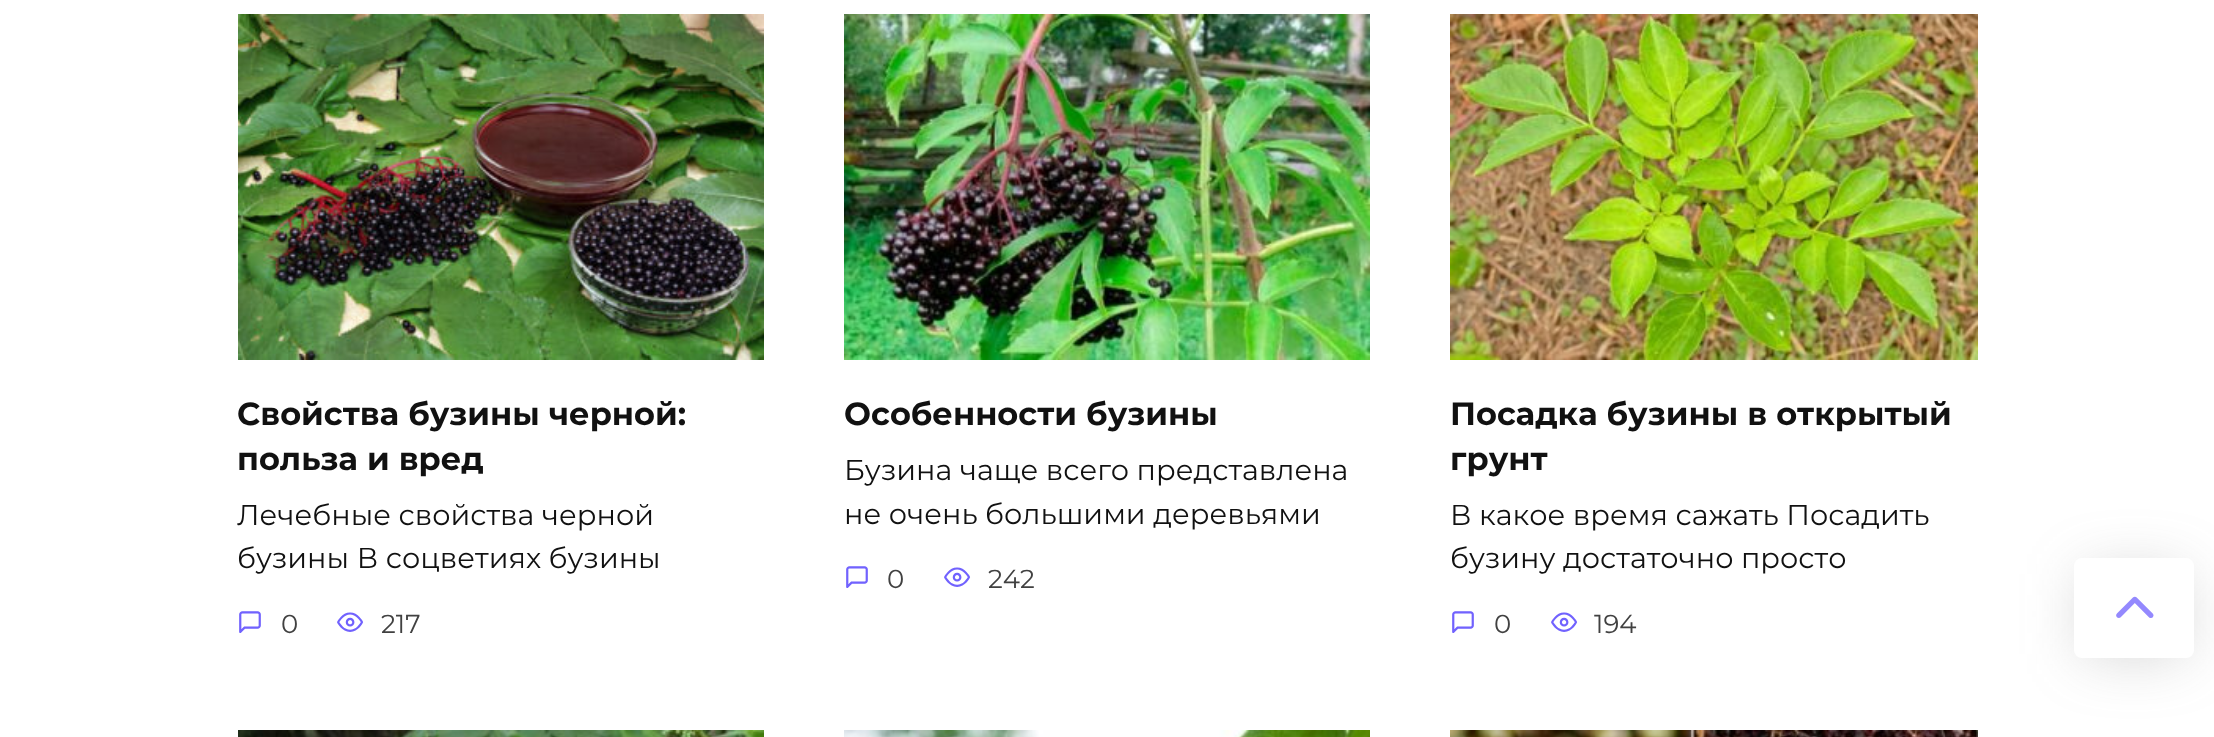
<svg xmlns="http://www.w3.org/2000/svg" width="2214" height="737">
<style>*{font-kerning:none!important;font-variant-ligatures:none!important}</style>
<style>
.a{font:bold 32px Montserrat;fill:#111}
.b{font:28.75px Montserrat;fill:#111}
.c{font:26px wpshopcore;fill:#7162fe}
.d{font:26px Montserrat;fill:#414141}
.e{font:64px wpshopcore;fill:#9489fe}
</style>
<rect width="100%" height="100%" fill="#fff"/>
<image href="1.png" x="238" y="14" width="526" height="346"/>
<image href="2.png" x="844" y="14" width="526" height="346"/>
<image href="3.png" x="1450" y="14" width="528" height="346"/>
<image href="4.png" x="238" y="730" width="526" height="7"/>
<image href="5.png" x="844" y="730" width="526" height="7"/>
<image href="6.png" x="1450" y="730" width="528" height="7"/>
<path fill="#6666664d" filter="blur(30px)" d="M2084 574h100v80H2084z"/>
<rect fill="#fff" x="2074" y="558" width="120" height="100" rx="8"/>
<text class="a" x="237" y="425">Свойства бузины черной:</text>
<text class="a" x="237" y="470">польза и вред</text>
<text class="b" x="237" y="525">Лечебные свойства черной</text>
<text class="b" x="237" y="568">бузины В соцветиях бузины</text>
<text class="c" x="237" y="633">💬</text>
<text class="d" x="281" y="633">0</text>
<text class="c" x="337" y="633">👀</text>
<text class="d" x="381" y="633">217</text>
<text class="a" x="844" y="425">Особенности бузины</text>
<text class="b" x="844" y="480">Бузина чаще всего представлена</text>
<text class="b" x="844" y="524">не очень большими деревьями</text>
<text class="c" x="844" y="588">💬</text>
<text class="d" x="887" y="588">0</text>
<text class="c" x="944" y="588">👀</text>
<text class="d" x="988" y="588">242</text>
<text class="a" x="1450" y="425">Посадка бузины в открытый</text>
<text class="a" x="1450" y="470">грунт</text>
<text class="b" x="1450" y="525">В какое время сажать Посадить</text>
<text class="b" x="1450" y="568">бузину достаточно просто</text>
<text class="c" x="1450" y="633">💬</text>
<text class="d" x="1494" y="633">0</text>
<text class="c" x="1551" y="633">👀</text>
<text class="d" x="1594" y="633">194</text>
<text class="e" x="2102" y="634">︿</text>
</svg>
